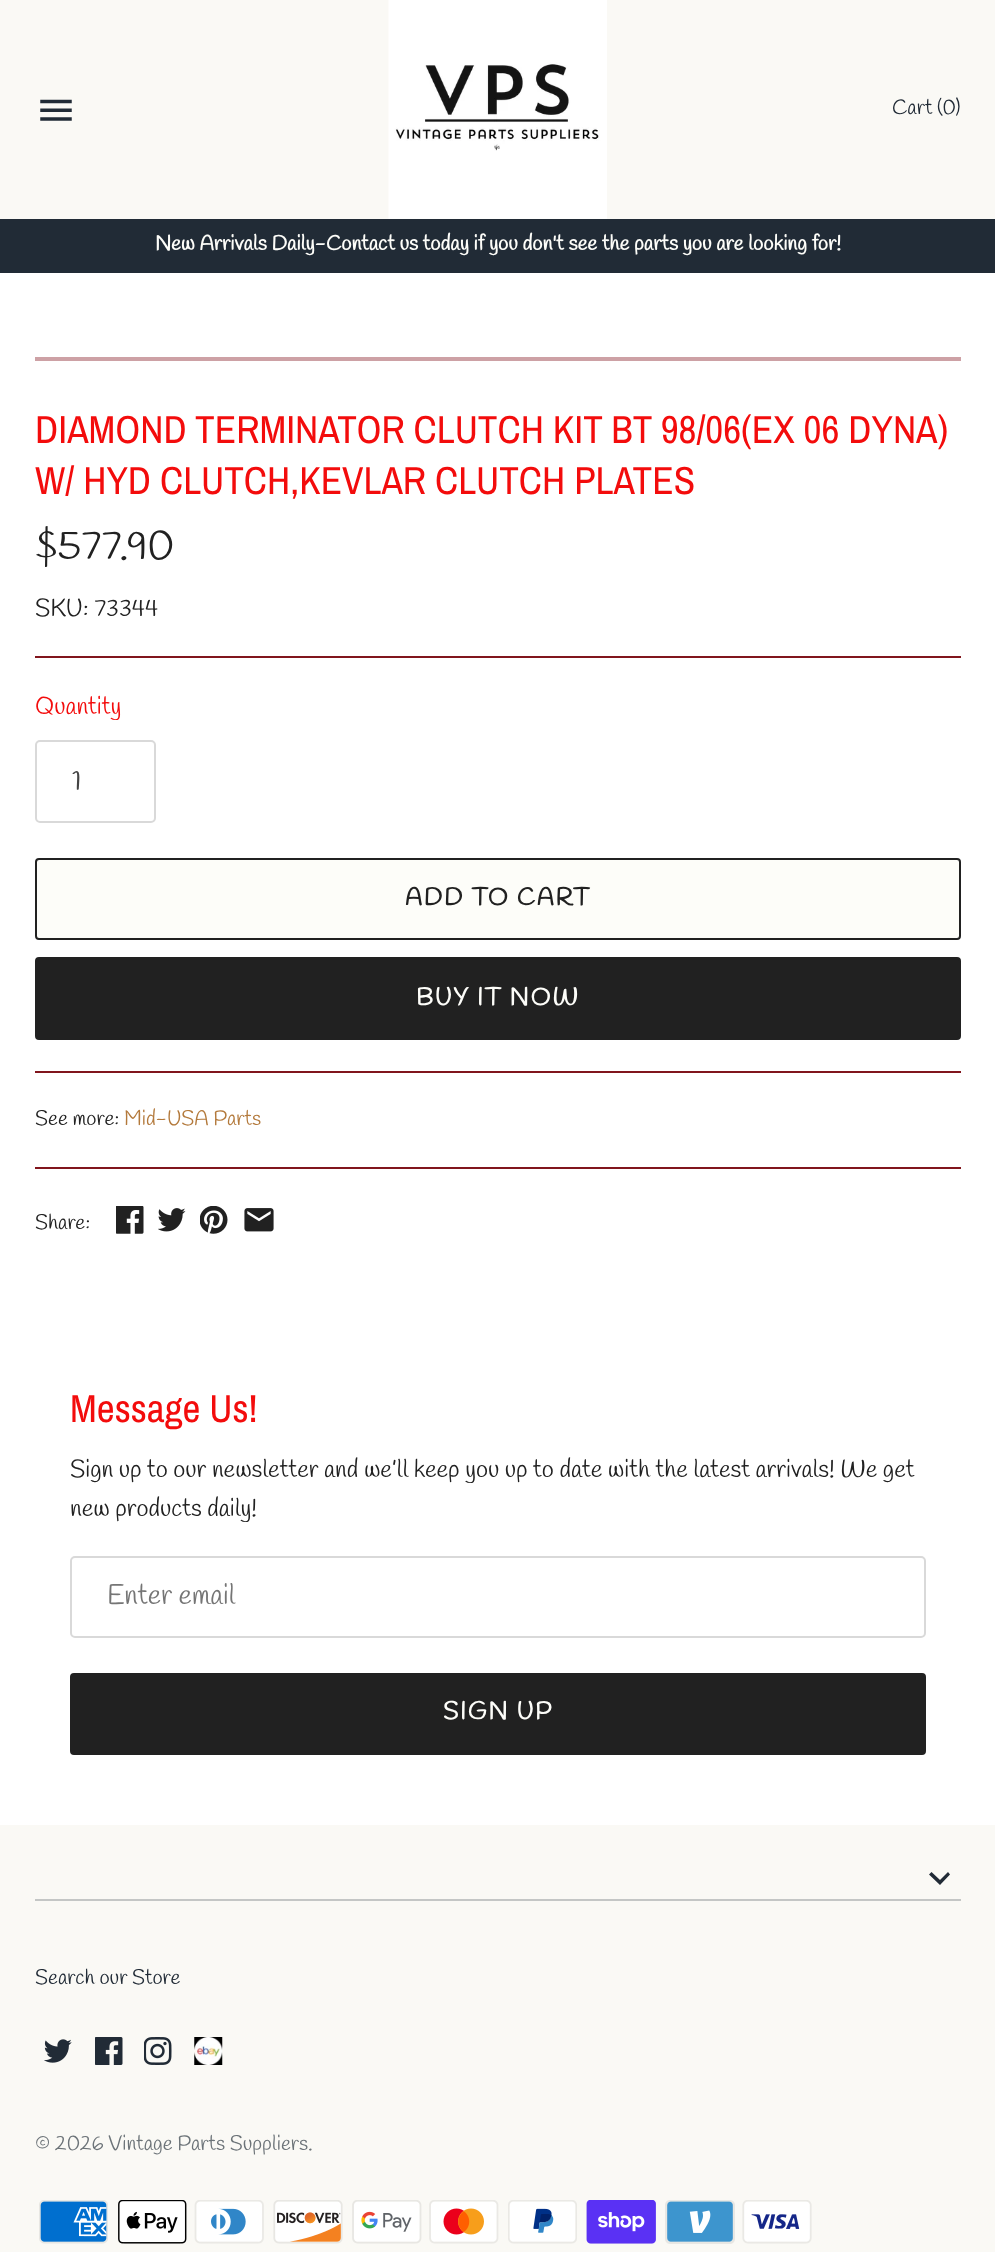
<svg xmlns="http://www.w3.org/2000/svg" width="995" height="2252">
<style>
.a{font:20.8px Handlee;fill:#212b36}
.b{font:bold 20.8px Handlee;fill:#fdfdf9}
.c{font:39.2px Archivo Narrow;fill:#f30c0c}
.d{font:41.5px Handlee;fill:#212121}
.e{font:24.5px Handlee;fill:#212121}
.f{font:24.5px Handlee;fill:#f30c0c}
.g{font:28px Handlee;fill:#444}
.h{font:bold 24.5px Handlee;letter-spacing:1.75px;fill:#212121}
.i{font:bold 24.5px Handlee;letter-spacing:1.75px;fill:#fdfdf9}
.j{font:20.8px Handlee;fill:#212121}
.k{font:20.8px Handlee;fill:#b3793b}
.l{font:28px Handlee;fill:#757575}
.m{font:20.8px Handlee;fill:#6c7378}
</style>
<rect width="100%" height="100%" fill="#fff"/>
<path fill="#faf9f5" d="M0 0h995v219H0z"/>
<image href="1.png" x="40" y="99" width="32" height="22"/>
<image href="2.png" x="388" y="0" width="219" height="219"/>
<path fill="#212b36" d="M0 219h995v54H0z"/>
<path fill="#cda1a5" d="M35 357h926v4H35z"/>
<path fill="#81151d" d="M35 656h926v2H35z"/>
<rect fill="none" stroke="#d9d9d9" stroke-width="2" x="36" y="741" width="119" height="81" rx="4"/>
<rect fill="#fdfdf9" stroke="#212121" stroke-width="2" x="36" y="859" width="924" height="80" rx="3"/>
<rect fill="#212121" stroke="#212121" stroke-width="2" x="36" y="958" width="924" height="81" rx="3"/>
<path fill="#81151d" d="M35 1071h926v2H35z"/>
<path fill="#81151d" d="M35 1167h926v2H35z"/>
<image href="3.png" x="116" y="1206" width="28" height="28"/>
<image href="4.png" x="158" y="1208" width="28" height="24"/>
<image href="5.png" x="200" y="1206" width="28" height="28"/>
<image href="6.png" x="244" y="1208" width="30" height="24"/>
<rect fill="none" stroke="#d9d9d9" stroke-width="2" x="71" y="1557" width="854" height="80" rx="4"/>
<rect fill="#212121" stroke="#212121" stroke-width="2" x="71" y="1674" width="854" height="80" rx="3"/>
<path fill="#faf9f5" d="M0 1825h995v427H0z"/>
<path fill="#c4c6c5" d="M35 1899h926v2H35z"/>
<path fill="#212b36" d="M931.5 1872l8.5 8l8-8l2 2.5l-10 10.5l-11-10.5z"/>
<image href="7.png" x="44" y="2039" width="28" height="24"/>
<image href="8.png" x="95" y="2037" width="28" height="28"/>
<image href="9.png" x="144" y="2037" width="28" height="28"/>
<image href="10.png" x="194" y="2037" width="29" height="28"/>
<image href="11.png" x="39" y="2200" width="69" height="44"/>
<image href="12.png" x="118" y="2200" width="69" height="44"/>
<image href="13.png" x="194" y="2200" width="70" height="44"/>
<image href="14.png" x="273" y="2200" width="70" height="44"/>
<image href="15.png" x="352" y="2200" width="70" height="44"/>
<image href="16.png" x="429" y="2200" width="70" height="44"/>
<image href="17.png" x="508" y="2200" width="69" height="44"/>
<image href="18.png" x="586" y="2200" width="70" height="44"/>
<image href="19.png" x="665" y="2200" width="70" height="44"/>
<image href="20.png" x="742" y="2200" width="70" height="44"/>
<text class="a" x="892" y="114">Cart (0)</text>
<text class="b" x="155" y="250">New Arrivals Daily-Contact us today if you don't see the parts you are looking for!</text>
<text class="c" x="35" y="443">DIAMOND TERMINATOR CLUTCH KIT BT 98/06(EX 06 DYNA)</text>
<text class="c" x="35" y="494">W/ HYD CLUTCH,KEVLAR CLUTCH PLATES</text>
<text class="d" x="35" y="559">$577.90</text>
<text class="e" x="35" y="616">SKU: 73344</text>
<text class="f" x="35" y="714">Quantity</text>
<text class="g" x="72" y="790">1</text>
<text class="h" x="405" y="905">ADD TO CART</text>
<text class="i" x="416" y="1005">BUY IT NOW</text>
<text class="j" x="35" y="1125">See more:</text>
<text class="k" x="124" y="1125">Mid-USA Parts</text>
<text class="j" x="35" y="1229">Share:</text>
<text class="c" x="70" y="1422">Message Us!</text>
<text class="e" x="70" y="1477">Sign up to our newsletter and we’ll keep you up to date with the latest arrivals! We get</text>
<text class="e" x="70" y="1516">new products daily!</text>
<text class="l" x="107" y="1604">Enter email</text>
<text class="i" x="443" y="1719">SIGN UP</text>
<text class="a" x="35" y="1984">Search our Store</text>
<text class="m" x="35" y="2150">© 2026 Vintage Parts Suppliers.</text>
</svg>
